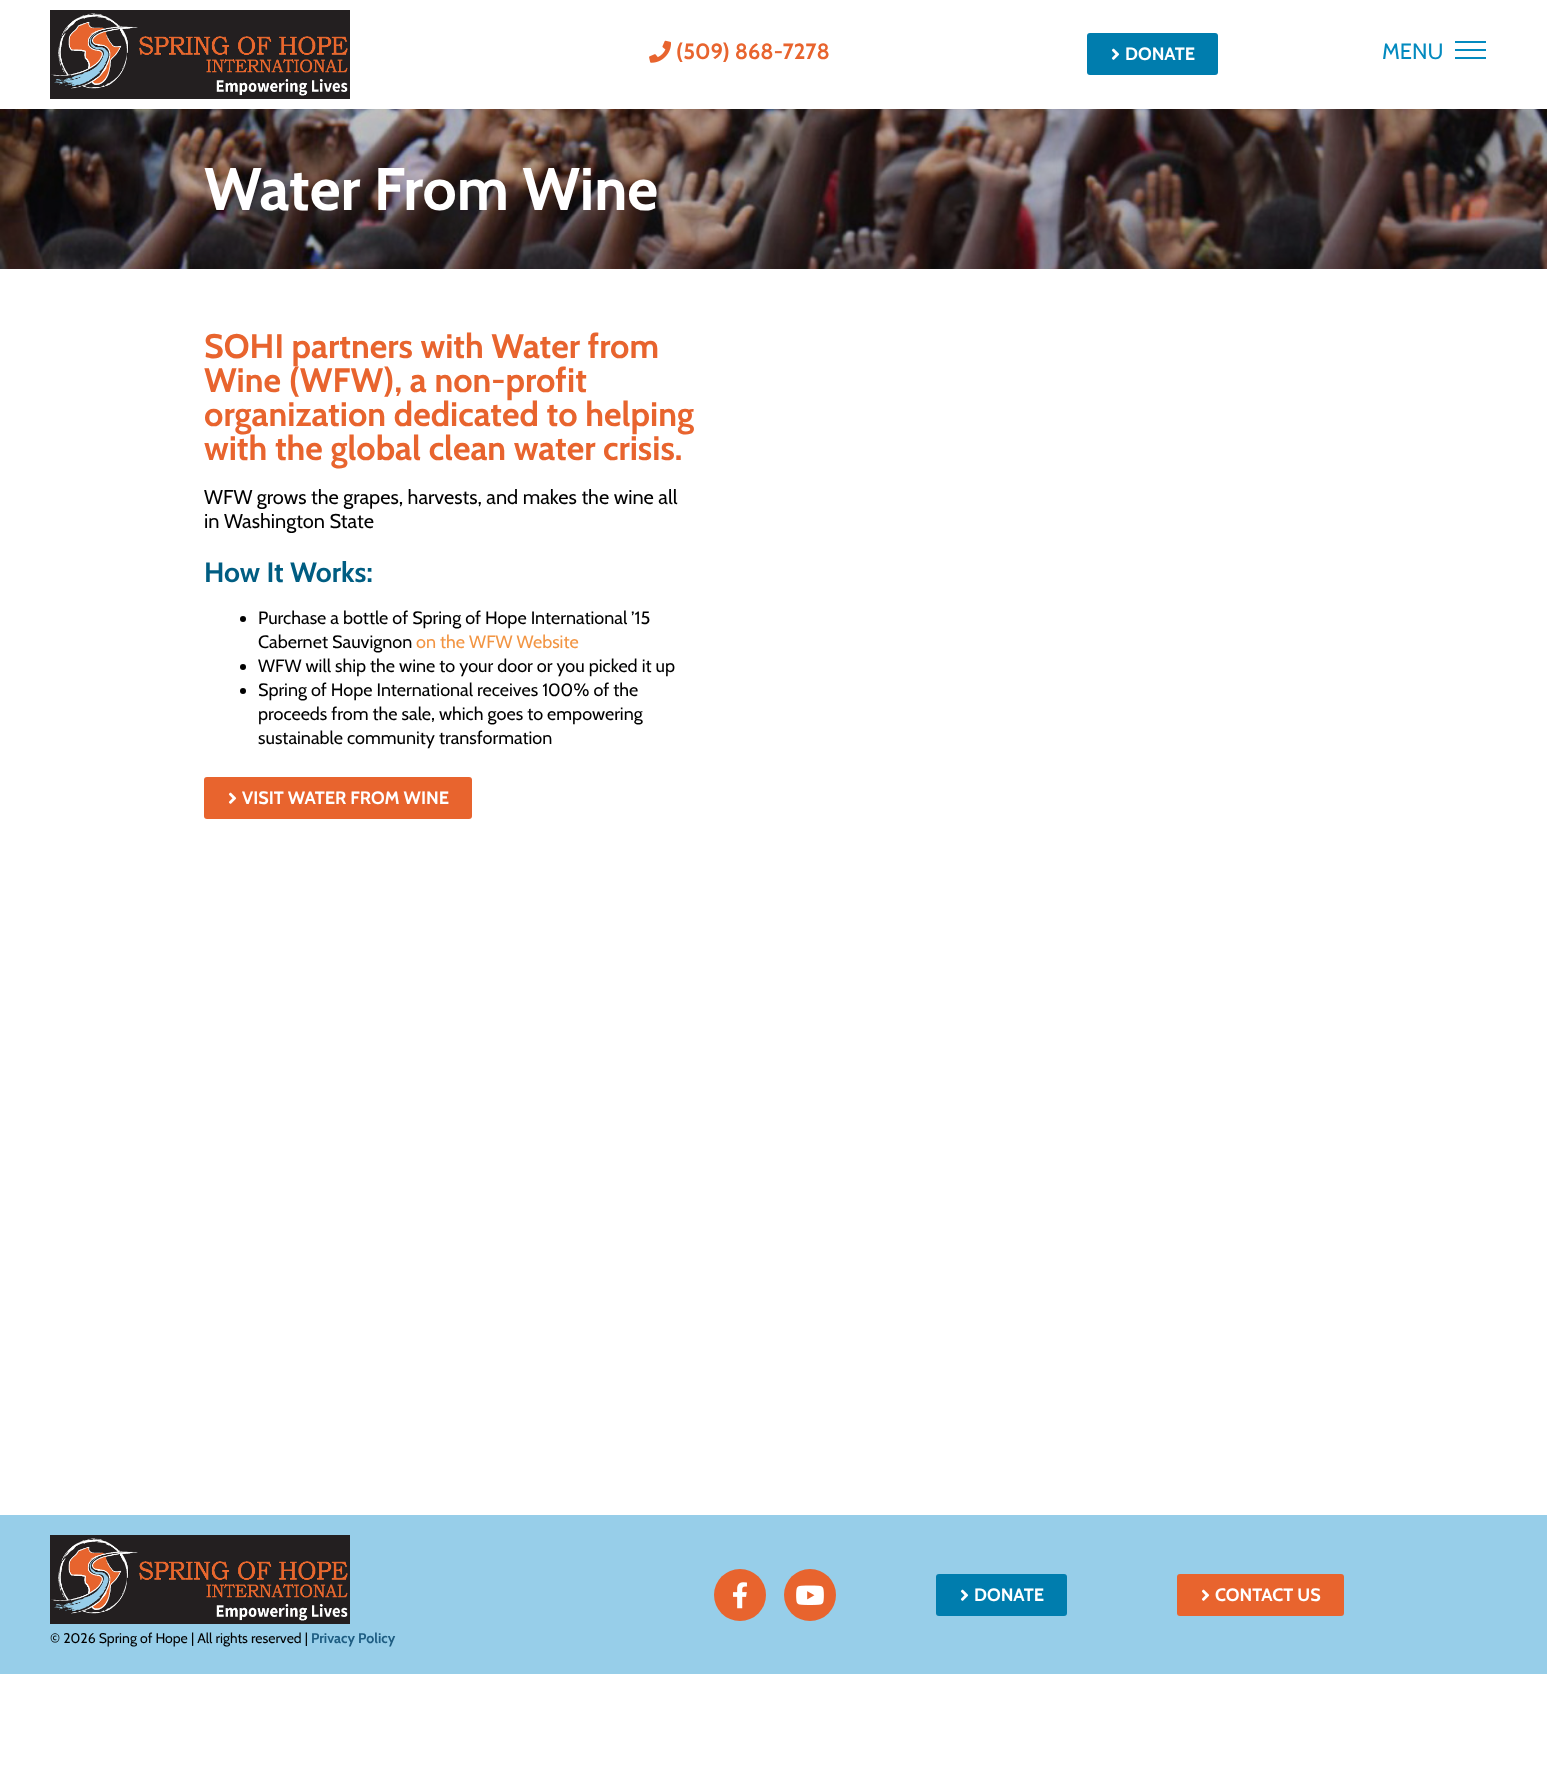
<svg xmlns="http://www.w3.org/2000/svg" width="1547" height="1787">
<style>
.a{font:bold 22px Cabin;fill:#e8642e}
.b{font:bold 18px Cabin;fill:#fff}
.c{font:bold 60px Cabin;fill:#fff}
.d{font:bold 34px Cabin;fill:#e8642e}
.e{font:20px Cabin;fill:#000}
.f{font:bold 28px Cabin;fill:#005d82}
.g{font:18px Cabin;fill:#000}
.h{font:18px Cabin;fill:#f29543}
.i{font:14px Cabin;fill:#000}
.j{font:bold 14px Cabin;fill:#1e5d82}
.k{font:22px Cabin;fill:#038abf}
</style>
<rect width="100%" height="100%" fill="#fff"/>
<image href="1.png" x="50" y="10" width="300" height="89"/>
<image href="2.png" x="649" y="40" width="22" height="23"/>
<rect fill="#007dae" x="1087" y="33" width="131" height="42" rx="3"/>
<image href="3.png" x="1111" y="48" width="9" height="12"/>
<image href="4.png" x="0" y="109" width="1547" height="160"/>
<circle fill="#000" cx="243" cy="619" r="3"/>
<circle fill="#000" cx="243" cy="667" r="3"/>
<circle fill="#000" cx="243" cy="691" r="3"/>
<rect fill="#e8642e" x="204" y="777" width="268" height="42" rx="3"/>
<image href="5.png" x="228" y="792" width="9" height="12"/>
<path fill="#97cee9" d="M0 1515h1547v159H0z"/>
<circle fill="#e8642e" cx="740" cy="1595" r="26"/>
<image href="6.png" x="733" y="1582" width="14" height="27"/>
<circle fill="#e8642e" cx="810" cy="1595" r="26"/>
<image href="7.png" x="796" y="1585" width="28" height="20"/>
<rect fill="#007dae" x="936" y="1574" width="131" height="42" rx="3"/>
<image href="3.png" x="960" y="1589" width="9" height="12"/>
<rect fill="#e8642e" x="1177" y="1574" width="167" height="42" rx="3"/>
<image href="5.png" x="1201" y="1589" width="9" height="12"/>
<image href="1.png" x="50" y="1535" width="300" height="89"/>
<path fill="#038abf" d="M1455 49h31v2H1455z"/>
<path fill="#038abf" d="M1455 41h31v2H1455z"/>
<path fill="#038abf" d="M1455 57h31v2H1455z"/>
<text class="a" x="676" y="59">(509) 868-7278</text>
<text class="b" x="1125" y="60">DONATE</text>
<text class="c" x="204" y="210">Water From Wine</text>
<text class="d" x="204" y="358">SOHI partners with Water from</text>
<text class="d" x="204" y="392">Wine (WFW), a non-profit</text>
<text class="d" x="204" y="426">organization dedicated to helping</text>
<text class="d" x="204" y="460">with the global clean water crisis.</text>
<text class="e" x="204" y="504">WFW grows the grapes, harvests, and makes the wine all</text>
<text class="e" x="204" y="528">in Washington State</text>
<text class="f" x="204" y="582">How It Works:</text>
<text class="g" x="258" y="624">Purchase a bottle of Spring of Hope International ’15</text>
<text class="g" x="258" y="648">Cabernet Sauvignon</text>
<text class="h" x="416" y="648">on the WFW Website</text>
<text class="g" x="258" y="672">WFW will ship the wine to your door or you picked it up</text>
<text class="g" x="258" y="696">Spring of Hope International receives 100% of the</text>
<text class="g" x="258" y="720">proceeds from the sale, which goes to empowering</text>
<text class="g" x="258" y="744">sustainable community transformation</text>
<text class="b" x="242" y="804">VISIT WATER FROM WINE</text>
<text class="b" x="974" y="1601">DONATE</text>
<text class="b" x="1215" y="1601">CONTACT US</text>
<text class="i" x="50" y="1643">© 2026 Spring of Hope | All rights reserved |</text>
<text class="j" x="311" y="1643">Privacy Policy</text>
<text class="k" x="1382" y="59">MENU</text>
</svg>
